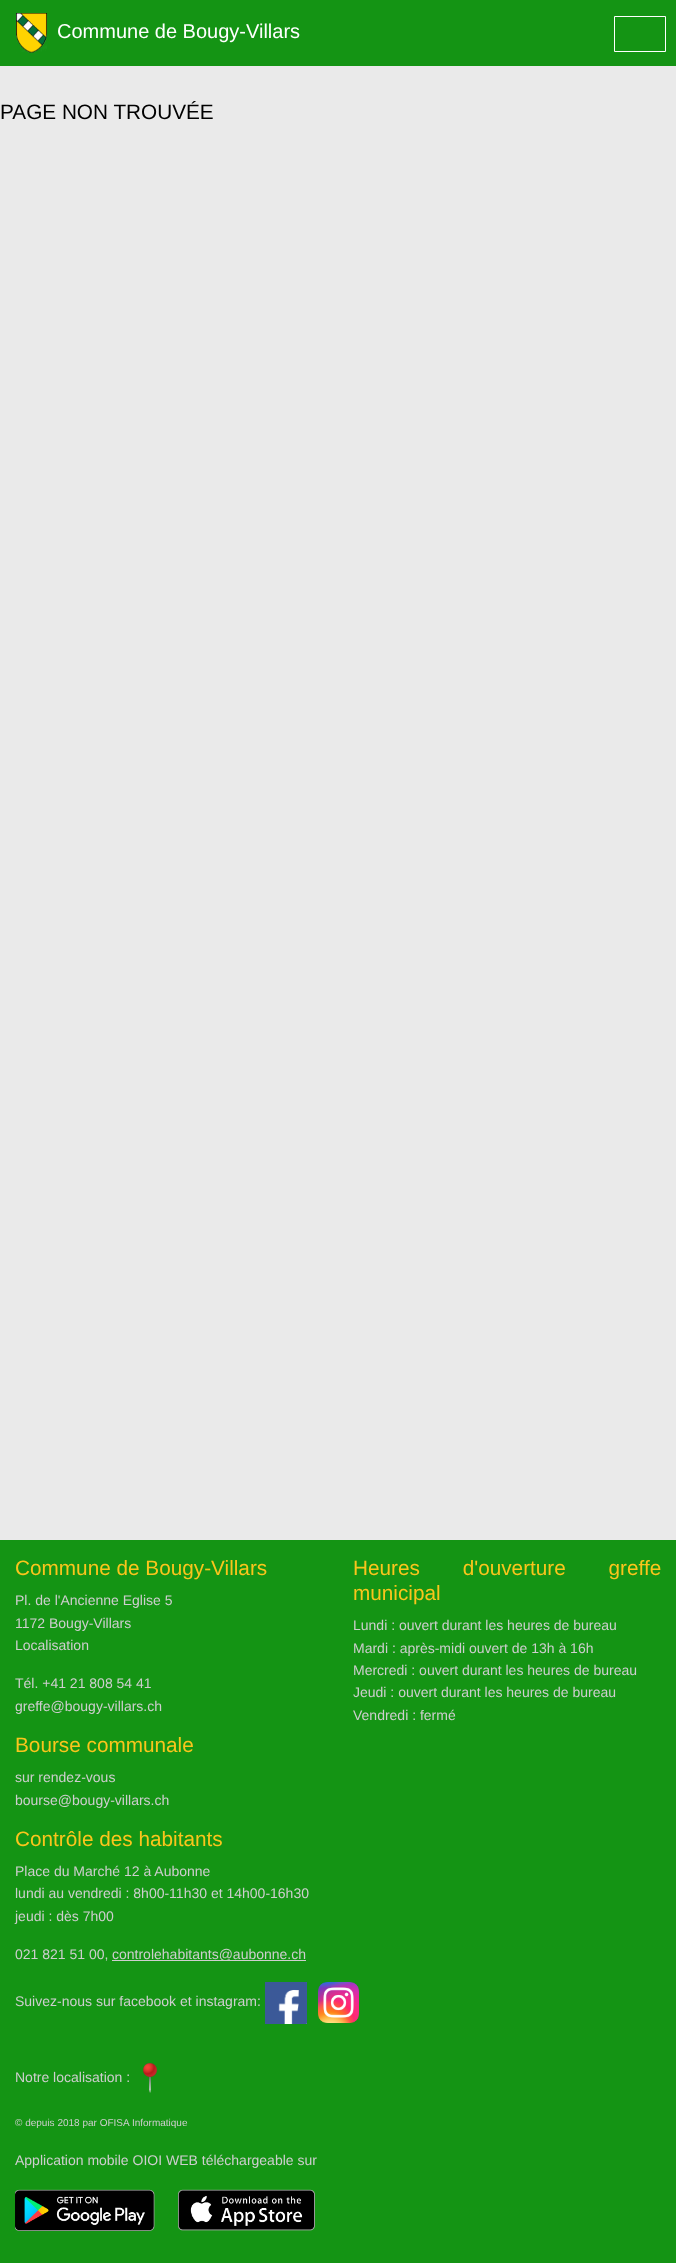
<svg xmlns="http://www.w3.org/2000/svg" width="676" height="2263">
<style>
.a{font:20px Liberation Sans;fill:#fff}
.b{font:20.75px Liberation Sans;fill:#000}
.c{font:20.75px Liberation Sans;fill:#fac51c}
.d{font:14px Liberation Sans;fill:#cecece}
.e{font:10px Liberation Sans;fill:#cecece}
</style>
<rect width="100%" height="100%" fill="#eaeaea"/>
<path fill="#149414" d="M0 0h676v66H0z"/>
<image href="1.png" x="16" y="13" width="31" height="40"/>
<path fill="none" stroke="#fff" d="M614.5 16.5h51v35H614.5z"/>
<path fill="#149414" d="M0 1540h676v723H0z"/>
<path fill="#cecece" d="M112 1960h194v1H112z"/>
<image href="2.png" x="265" y="1982" width="42" height="42"/>
<image href="3.png" x="318" y="1982" width="41" height="41"/>
<image href="4.png" x="143" y="2063" width="14" height="30"/>
<image href="5.png" x="15" y="2189" width="300" height="42"/>
<text class="a" x="57" y="38">Commune de Bougy-Villars</text>
<text class="b" x="0" y="119">PAGE NON TROUVÉE</text>
<text class="c" x="15" y="1575">Commune de Bougy-Villars</text>
<text class="d" x="15" y="1605">Pl. de l'Ancienne Eglise 5</text>
<text class="d" x="15" y="1628">1172 Bougy-Villars</text>
<text class="d" x="15" y="1650">Localisation</text>
<text class="d" x="15" y="1688">Tél. +41 21 808 54 41</text>
<text class="d" x="15" y="1711">greffe@bougy-villars.ch</text>
<text class="c" x="15" y="1752">Bourse communale</text>
<text class="d" x="15" y="1782">sur rendez-vous</text>
<text class="d" x="15" y="1805">bourse@bougy-villars.ch</text>
<text class="c" x="15" y="1846">Contrôle des habitants</text>
<text class="d" x="15" y="1876">Place du Marché 12 à Aubonne</text>
<text class="d" x="15" y="1898">lundi au vendredi : 8h00-11h30 et 14h00-16h30</text>
<text class="d" x="15" y="1921">jeudi : dès 7h00</text>
<text class="d" x="15" y="1959">021 821 51 00,</text>
<text class="d" x="112" y="1959">controlehabitants@aubonne.ch</text>
<text class="c" x="353" y="1575" word-spacing="37">Heures d'ouverture greffe</text>
<text class="c" x="353" y="1600">municipal</text>
<text class="d" x="353" y="1630">Lundi : ouvert durant les heures de bureau</text>
<text class="d" x="353" y="1653">Mardi : après-midi ouvert de 13h à 16h</text>
<text class="d" x="353" y="1675">Mercredi : ouvert durant les heures de bureau</text>
<text class="d" x="353" y="1697">Jeudi : ouvert durant les heures de bureau</text>
<text class="d" x="353" y="1720">Vendredi : fermé</text>
<text class="d" x="15" y="2006">Suivez-nous sur facebook et instagram:</text>
<text class="d" x="15" y="2082">Notre localisation :</text>
<text class="e" x="15" y="2126">© depuis 2018 par OFISA Informatique</text>
<text class="d" x="15" y="2165">Application mobile OIOI WEB téléchargeable sur</text>
</svg>
